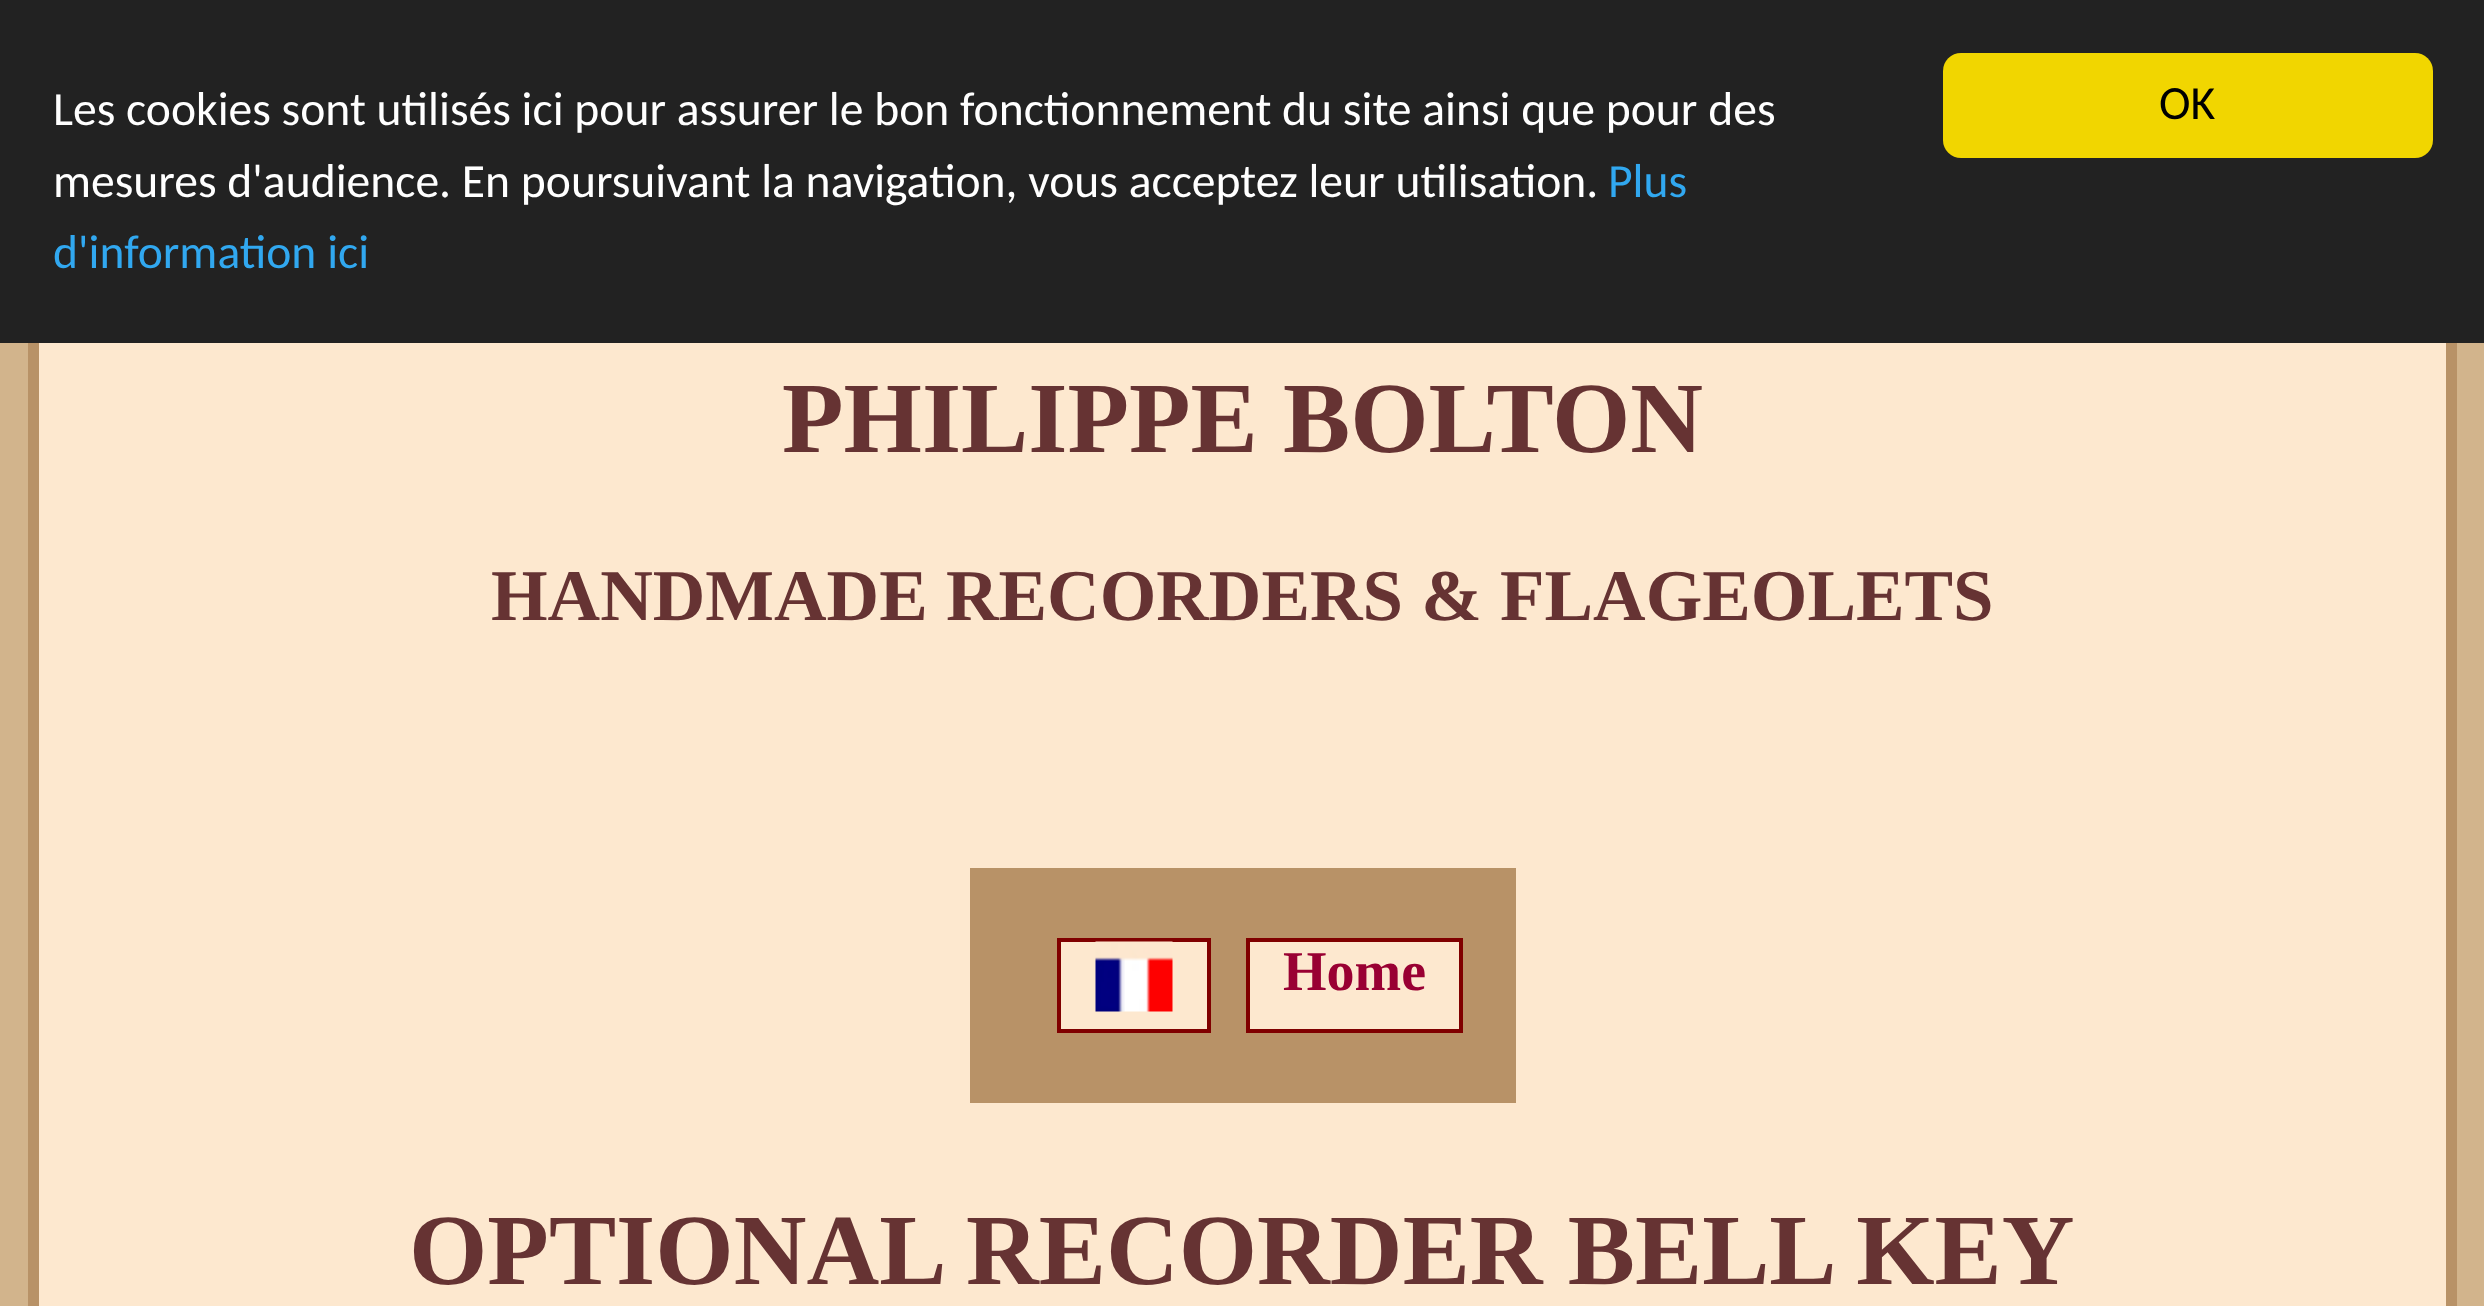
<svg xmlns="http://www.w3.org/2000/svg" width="2484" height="1306">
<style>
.a{font:47.6px Carlito;fill:#fff}
.b{font:47.6px Carlito;fill:#31a8f0}
.c{font:47.6px Carlito;fill:#000}
.d{font:bold 100.75px Liberation Serif;fill:#633}
.e{font:bold 72.8px Liberation Serif;fill:#633}
.f{font:bold 56px Liberation Serif;fill:#903}
</style>
<rect width="100%" height="100%" fill="#d2b48c"/>
<path fill="#fde8cf" d="M39 343h2407v963H39z"/>
<path fill="none" stroke="#b89267" stroke-width="11" d="M33.5 264.5h2418v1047H33.5z"/>
<path fill="#222" d="M0 0h2484v343H0z"/>
<rect fill="#f1d600" x="1943" y="53" width="490" height="105" rx="18"/>
<path fill="#b89267" d="M970 868h546v235H970z"/>
<path fill="#fde8cf" stroke="#800000" stroke-width="4" d="M1059 940h150v91H1059z"/>
<image href="1.png" x="1095" y="941" width="78" height="71"/>
<path fill="#fde8cf" stroke="#800000" stroke-width="4" d="M1248 940h213v91H1248z"/>
<text class="a" x="53" y="125">Les cookies sont utilisés ici pour assurer le bon fonctionnement du site ainsi que pour des</text>
<text class="a" x="53" y="197">mesures d'audience. En poursuivant la navigation, vous acceptez leur utilisation.</text>
<text class="b" x="1608" y="197">Plus</text>
<text class="b" x="53" y="268">d'information ici</text>
<text class="c" x="2159" y="119">OK</text>
<text class="d" x="782" y="452">PHILIPPE BOLTON</text>
<text class="e" x="491" y="620">HANDMADE RECORDERS &amp; FLAGEOLETS</text>
<text class="f" x="1283" y="990">Home</text>
<text class="d" x="409" y="1284">OPTIONAL RECORDER BELL KEY</text>
</svg>
